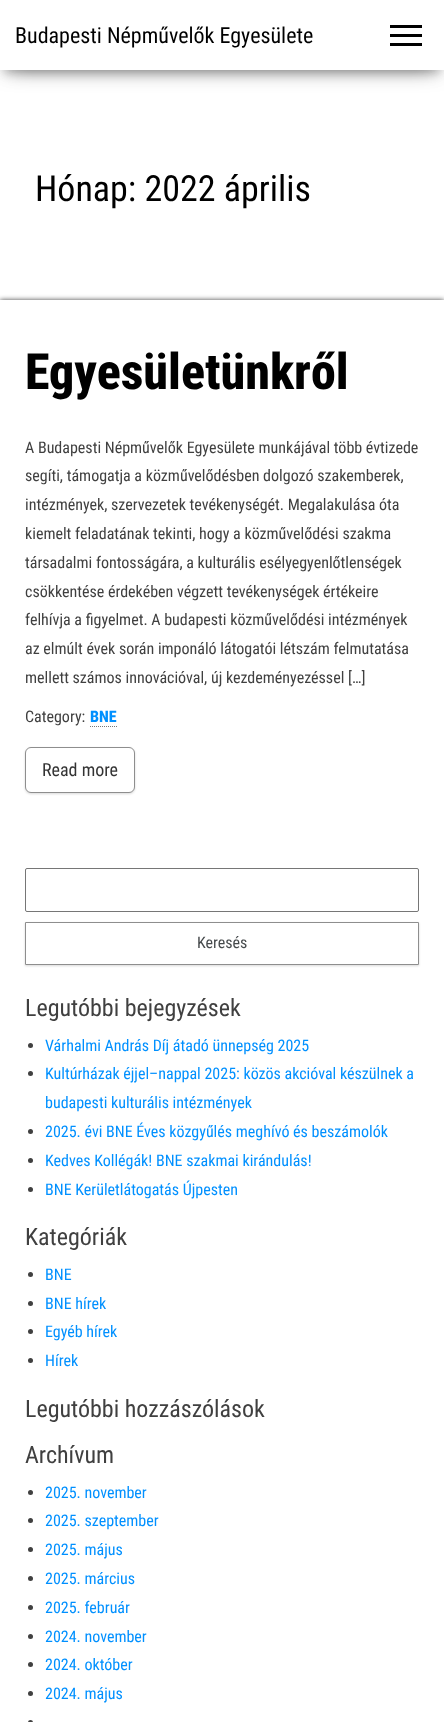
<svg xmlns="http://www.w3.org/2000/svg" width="444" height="1722">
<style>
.a{font:22px Roboto Condensed;fill:#000}
.b{font:36px Roboto Condensed;fill:#000}
.c{font:800 50px Roboto Condensed;fill:#000}
.d{font:16px Roboto Condensed;fill:#404040}
.e{font:800 16px Roboto Condensed;fill:#0090ff}
.f{font:18px Roboto Condensed;fill:#333}
.g{font:16px Roboto Condensed;fill:#464a4c}
.h{font:24px Roboto Condensed;fill:#404040}
.i{font:16px Roboto Condensed;fill:#0090ff}
</style>
<defs>
<clipPath id="clip1"><path d="M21 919h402v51h-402zm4 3h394v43h-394z" clip-rule="evenodd"/></clipPath>
</defs>
<rect width="100%" height="100%" fill="#fff"/>
<path fill="#00000033" filter="blur(5px)" d="M5 13h434v60H5z"/>
<path fill="#0000001f" filter="blur(10px)" d="M0 3h444v70H0z"/>
<path fill="#0000006b" filter="blur(10px)" d="M12 22h420v46H12z"/>
<path fill="#fff" d="M0 0h444v70H0z"/>
<path fill="#000" d="M390 25h32v3H390z"/>
<path fill="#000" d="M390 34h32v3H390z"/>
<path fill="#000" d="M390 43h32v3H390z"/>
<path fill="#000000bf" filter="blur(2.5px)" d="M0 300h444v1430H0z"/>
<path fill="#fff" d="M0 300h444v1422H0z"/>
<path fill="none" stroke="#777" stroke-dasharray="1 1" d="M90 726.5h27"/>
<rect fill="#00000026" filter="blur(1px)" x="25" y="748" width="110" height="46" rx="6"/>
<rect fill="#fff" stroke="#8e8e8e" x="25.5" y="747.5" width="109" height="45" rx="5.5"/>
<rect fill="none" stroke="#767676" x="25.5" y="868.5" width="393" height="43" rx="1.5"/>
<g clip-path="url(#clip1)">
<path fill="#00000026" filter="blur(1px)" d="M25 923h394v43H25z"/>
</g>
<path fill="none" stroke="#8e8e8e" d="M25.5 922.5h393v42H25.5z"/>
<circle fill="#404040" cx="30.5" cy="1045.5" r="2.5"/>
<circle fill="#404040" cx="30.5" cy="1073.5" r="2.5"/>
<circle fill="#404040" cx="30.5" cy="1131.5" r="2.5"/>
<circle fill="#404040" cx="30.5" cy="1160.5" r="2.5"/>
<circle fill="#404040" cx="30.5" cy="1189.5" r="2.5"/>
<circle fill="#404040" cx="30.5" cy="1274.5" r="2.5"/>
<circle fill="#404040" cx="30.5" cy="1303.5" r="2.5"/>
<circle fill="#404040" cx="30.5" cy="1331.5" r="2.5"/>
<circle fill="#404040" cx="30.5" cy="1360.5" r="2.5"/>
<circle fill="#404040" cx="30.5" cy="1492.5" r="2.5"/>
<circle fill="#404040" cx="30.5" cy="1520.5" r="2.5"/>
<circle fill="#404040" cx="30.5" cy="1549.5" r="2.5"/>
<circle fill="#404040" cx="30.5" cy="1578.5" r="2.5"/>
<circle fill="#404040" cx="30.5" cy="1607.5" r="2.5"/>
<circle fill="#404040" cx="30.5" cy="1636.5" r="2.5"/>
<circle fill="#404040" cx="30.5" cy="1664.5" r="2.5"/>
<circle fill="#404040" cx="30.5" cy="1693.5" r="2.5"/>
<circle fill="#404040" cx="30.5" cy="1722.5" r="2.5"/>
<text class="a" x="15" y="43">Budapesti Népművelők Egyesülete</text>
<text class="b" x="35" y="201">Hónap: 2022 április</text>
<text class="c" x="25" y="389">Egyesületünkről</text>
<text class="d" x="25" y="453">A Budapesti Népművelők Egyesülete munkájával több évtizede</text>
<text class="d" x="25" y="481">segíti, támogatja a közművelődésben dolgozó szakemberek,</text>
<text class="d" x="25" y="510">intézmények, szervezetek tevékenységét. Megalakulása óta</text>
<text class="d" x="25" y="539">kiemelt feladatának tekinti, hogy a közművelődési szakma</text>
<text class="d" x="25" y="568">társadalmi fontosságára, a kulturális esélyegyenlőtlenségek</text>
<text class="d" x="25" y="597">csökkentése érdekében végzett tevékenységek értékeire</text>
<text class="d" x="25" y="625">felhívja a figyelmet. A budapesti közművelődési intézmények</text>
<text class="d" x="25" y="654">az elmúlt évek során imponáló látogatói létszám felmutatása</text>
<text class="d" x="25" y="683">mellett számos innovációval, új kezdeményezéssel […]</text>
<text class="d" x="25" y="722">Category:</text>
<text class="e" x="90" y="722">BNE</text>
<text class="f" x="42" y="776">Read more</text>
<text class="g" x="197" y="948">Keresés</text>
<text class="h" x="25" y="1016">Legutóbbi bejegyzések</text>
<text class="i" x="45" y="1051">Várhalmi András Díj átadó ünnepség 2025</text>
<text class="i" x="45" y="1079">Kultúrházak éjjel–nappal 2025: közös akcióval készülnek a</text>
<text class="i" x="45" y="1108">budapesti kulturális intézmények</text>
<text class="i" x="45" y="1137">2025. évi BNE Éves közgyűlés meghívó és beszámolók</text>
<text class="i" x="45" y="1166">Kedves Kollégák! BNE szakmai kirándulás!</text>
<text class="i" x="45" y="1195">BNE Kerületlátogatás Újpesten</text>
<text class="h" x="25" y="1245">Kategóriák</text>
<text class="i" x="45" y="1280">BNE</text>
<text class="i" x="45" y="1309">BNE hírek</text>
<text class="i" x="45" y="1337">Egyéb hírek</text>
<text class="i" x="45" y="1366">Hírek</text>
<text class="h" x="25" y="1417">Legutóbbi hozzászólások</text>
<text class="h" x="25" y="1463">Archívum</text>
<text class="i" x="45" y="1498">2025. november</text>
<text class="i" x="45" y="1526">2025. szeptember</text>
<text class="i" x="45" y="1555">2025. május</text>
<text class="i" x="45" y="1584">2025. március</text>
<text class="i" x="45" y="1613">2025. február</text>
<text class="i" x="45" y="1642">2024. november</text>
<text class="i" x="45" y="1670">2024. október</text>
<text class="i" x="45" y="1699">2024. május</text>
</svg>
